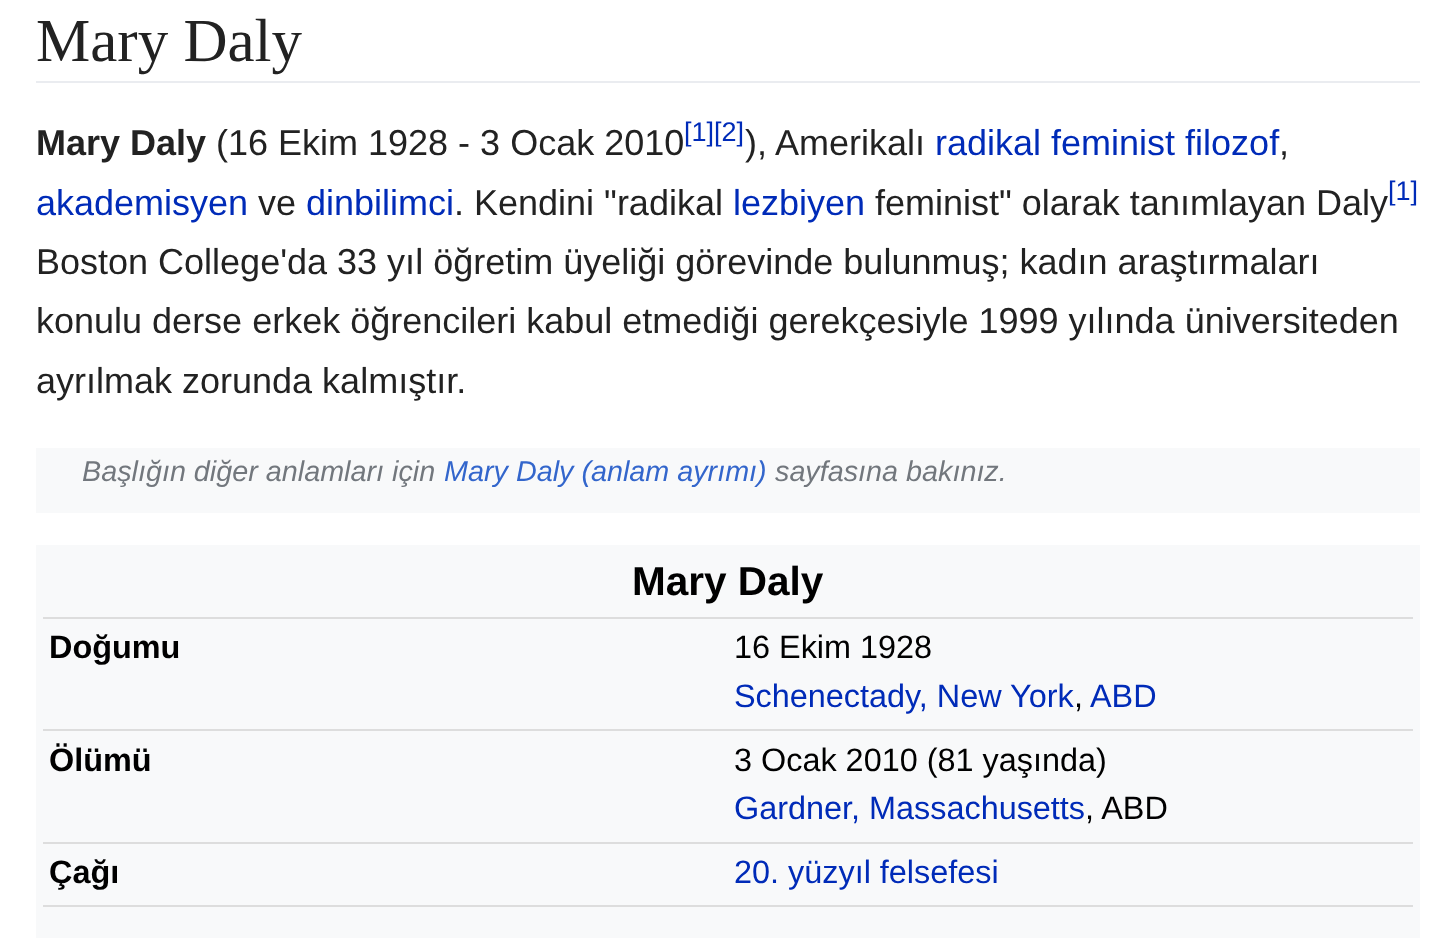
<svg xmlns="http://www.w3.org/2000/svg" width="1455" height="938">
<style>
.a{font:61px Liberation Serif;fill:#222}
.b{font:bold 36px Liberation Sans;fill:#222}
.c{font:36px Liberation Sans;fill:#222}
.d{font:27px Liberation Sans;fill:#002bb8}
.e{font:36px Liberation Sans;fill:#002bb8}
.f{font:italic 28.75px Liberation Sans;fill:#72777d}
.g{font:italic 28.75px Liberation Sans;fill:#36c}
.h{font:bold 40.5px Liberation Sans;fill:#000}
.i{font:bold 32.4px Liberation Sans;fill:#000}
.j{font:32.4px Liberation Sans;fill:#000}
.k{font:32.4px Liberation Sans;fill:#002bb8}
</style>
<rect width="100%" height="100%" fill="#fff"/>
<path fill="#eaecf0" d="M36 81h1384v2H36z"/>
<path fill="#f8f9fa" d="M36 448h1384v65H36z"/>
<path fill="#f8f9fa" d="M36 545h1384v393H36z"/>
<path fill="#ddd" d="M43 617h1370v2H43z"/>
<path fill="#ddd" d="M43 729h1370v2H43z"/>
<path fill="#ddd" d="M43 842h1370v2H43z"/>
<path fill="#ddd" d="M43 905h1370v2H43z"/>
<text class="a" x="36" y="61">Mary Daly</text>
<text class="b" x="36" y="155">Mary Daly</text>
<text class="c" x="216" y="155">(16 Ekim 1928 - 3 Ocak 2010</text>
<text class="d" x="684" y="141">[1][2]</text>
<text class="c" x="745" y="155">), Amerikalı</text>
<text class="e" x="935" y="155">radikal feminist filozof</text>
<text class="c" x="1279" y="155">,</text>
<text class="e" x="36" y="215">akademisyen</text>
<text class="c" x="258" y="215">ve</text>
<text class="e" x="306" y="215">dinbilimci</text>
<text class="c" x="454" y="215">. Kendini "radikal</text>
<text class="e" x="733" y="215">lezbiyen</text>
<text class="c" x="875" y="215">feminist" olarak tanımlayan Daly</text>
<text class="d" x="1388" y="200">[1]</text>
<text class="c" x="36" y="274">Boston College'da 33 yıl öğretim üyeliği görevinde bulunmuş; kadın araştırmaları</text>
<text class="c" x="36" y="333">konulu derse erkek öğrencileri kabul etmediği gerekçesiyle 1999 yılında üniversiteden</text>
<text class="c" x="36" y="393">ayrılmak zorunda kalmıştır.</text>
<text class="f" x="82" y="481">Başlığın diğer anlamları için</text>
<text class="g" x="444" y="481">Mary Daly (anlam ayrımı)</text>
<text class="f" x="775" y="481">sayfasına bakınız.</text>
<text class="h" x="632" y="595">Mary Daly</text>
<text class="i" x="49" y="658">Doğumu</text>
<text class="j" x="734" y="658">16 Ekim 1928</text>
<text class="k" x="734" y="707">Schenectady, New York</text>
<text class="j" x="1074" y="707">,</text>
<text class="k" x="1090" y="707">ABD</text>
<text class="i" x="49" y="771">Ölümü</text>
<text class="j" x="734" y="771">3 Ocak 2010 (81 yaşında)</text>
<text class="k" x="734" y="819">Gardner, Massachusetts</text>
<text class="j" x="1085" y="819">, ABD</text>
<text class="i" x="49" y="883">Çağı</text>
<text class="k" x="734" y="883">20. yüzyıl felsefesi</text>
</svg>
